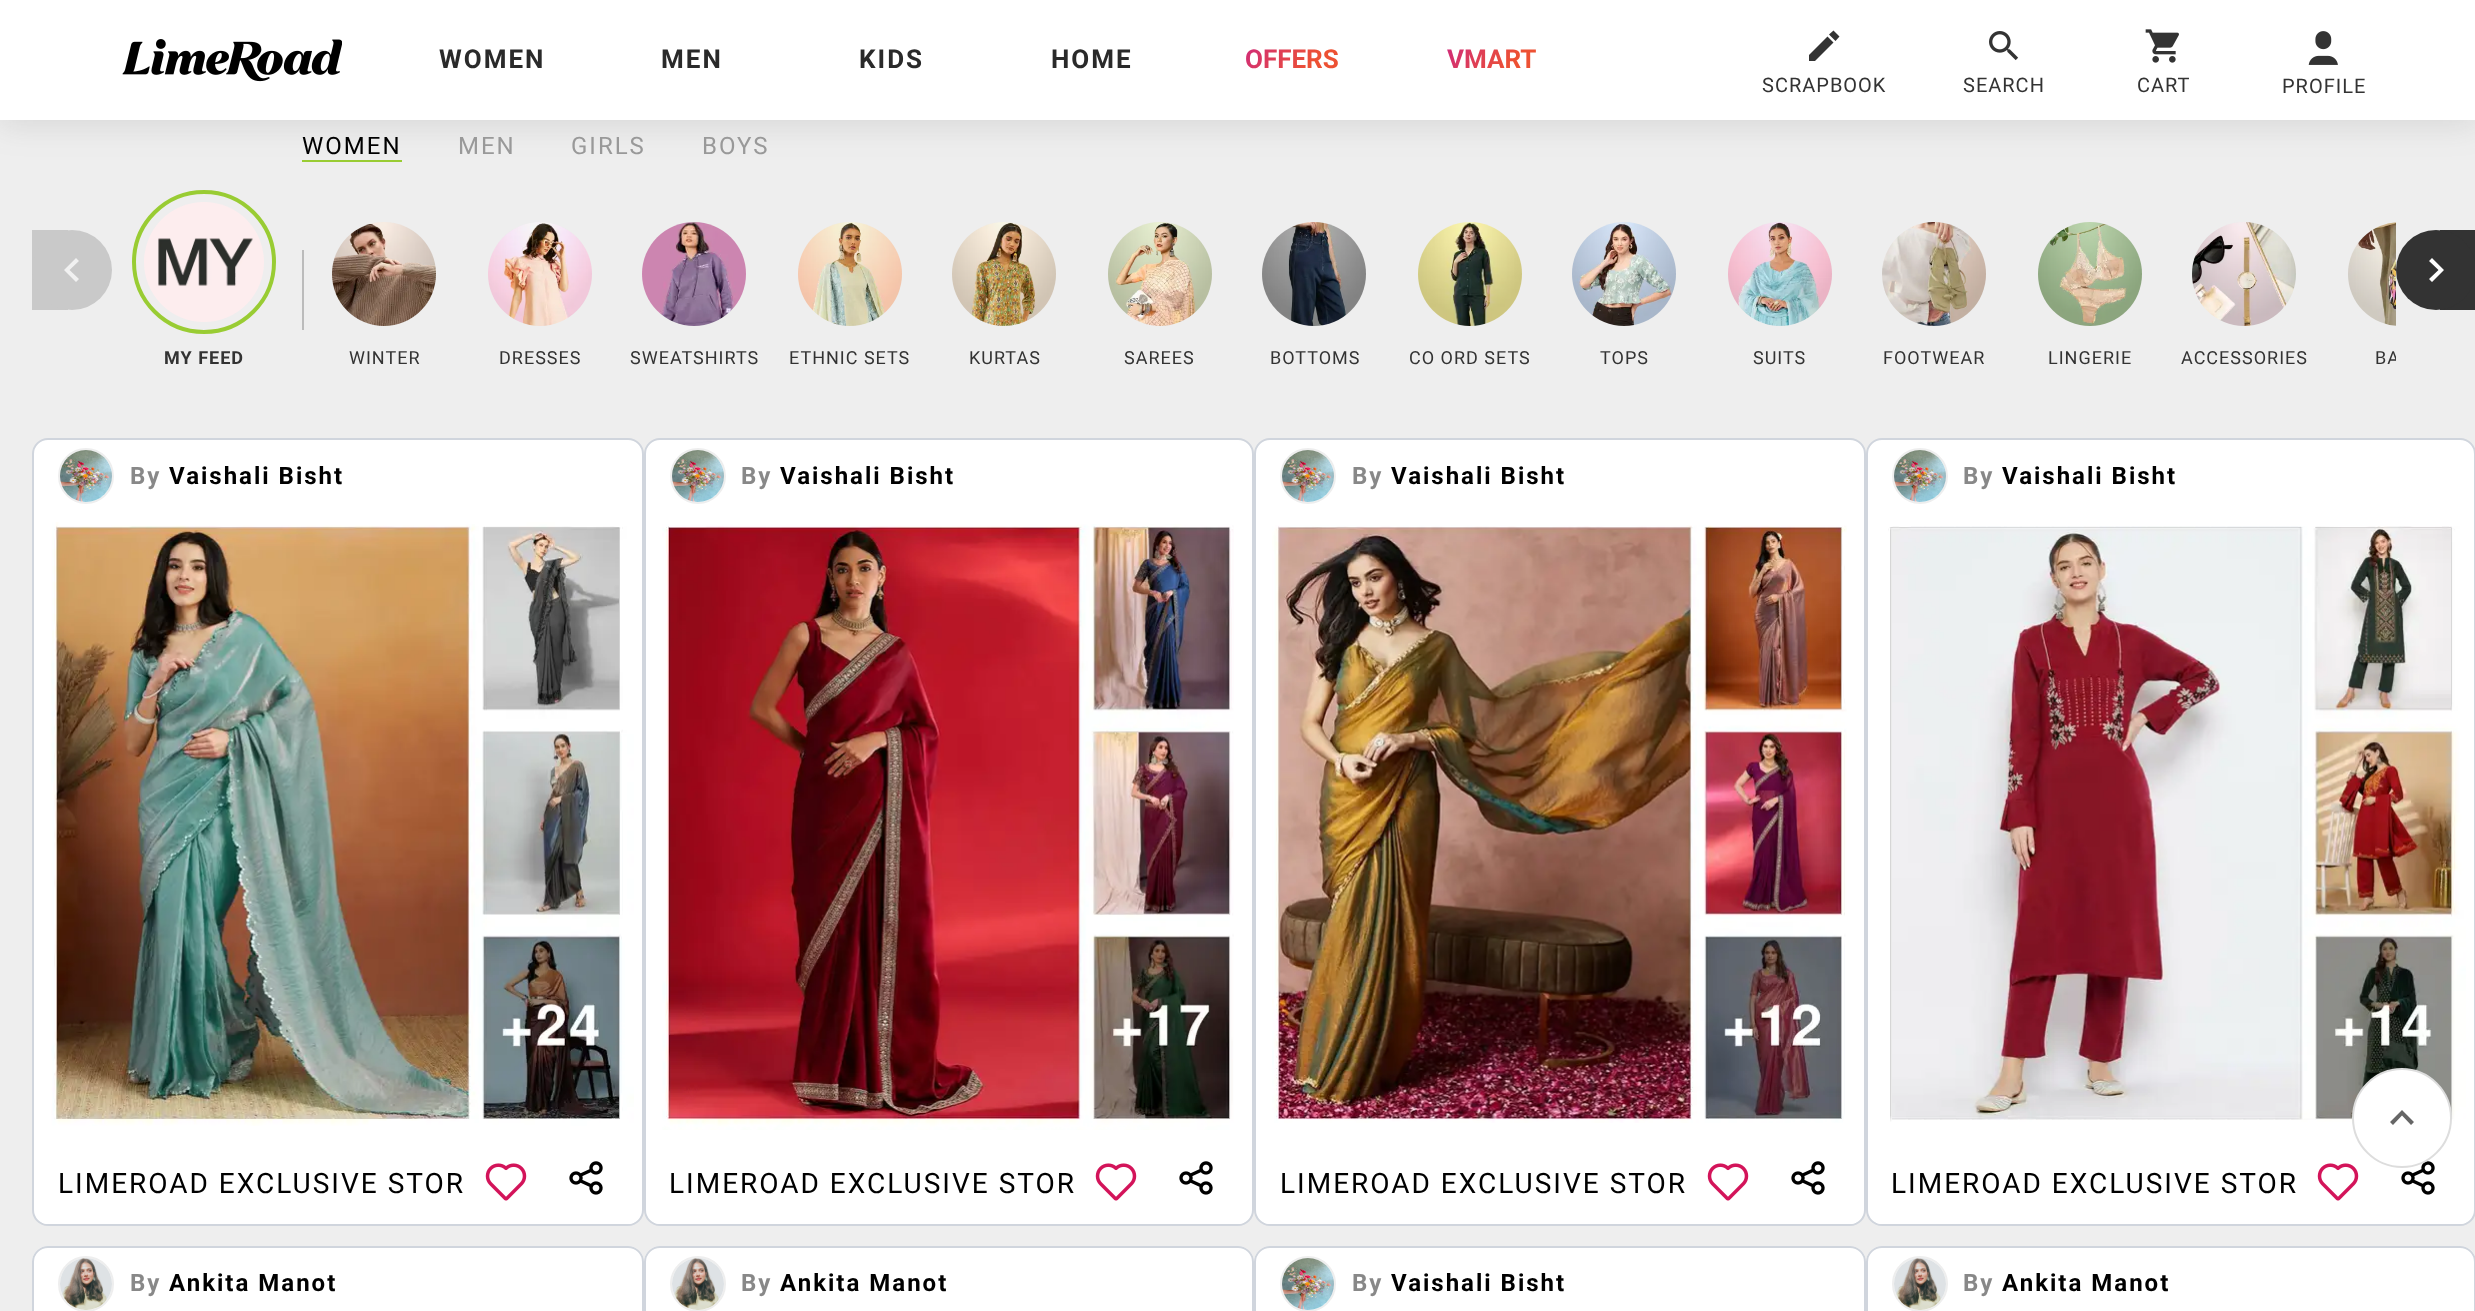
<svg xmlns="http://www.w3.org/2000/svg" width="2475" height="1311">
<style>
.a{font:bold 26px Roboto;letter-spacing:2px;fill:#2a2a2a}
.b{font:bold 26px Roboto;fill:url(#g1)}
.c{font:bold 26px Roboto;fill:url(#g2)}
.d{font:20px Roboto;letter-spacing:1px;fill:#333}
.e{font:24px Roboto;letter-spacing:2px;fill:#000}
.f{font:24px Roboto;letter-spacing:2px;fill:#999}
.g{font:bold 18px Roboto;letter-spacing:1px;fill:#333}
.h{font:18px Roboto;letter-spacing:1px;fill:#333}
.i{font:bold 24px Roboto;letter-spacing:2px;fill:#888}
.j{font:bold 24px Roboto;letter-spacing:2px;fill:#000}
.k{font:28px Roboto;letter-spacing:2px;fill:#000}
</style>
<defs>
<clipPath id="clip1"><rect x="34" y="440" width="608" height="784" rx="14"/></clipPath>
<clipPath id="clip2"><rect x="646" y="440" width="606" height="784" rx="14"/></clipPath>
<clipPath id="clip3"><rect x="1256" y="440" width="608" height="784" rx="14"/></clipPath>
<clipPath id="clip4"><rect x="1868" y="440" width="606" height="784" rx="14"/></clipPath>
<linearGradient id="g1" gradientUnits="userSpaceOnUse" x1="1248" y1="30" x2="1332" y2="84"><stop offset="0" stop-color="#ce297e"/><stop offset="0.73" stop-color="#ed5133"/></linearGradient>
<linearGradient id="g2" gradientUnits="userSpaceOnUse" x1="1450" y1="32" x2="1530" y2="83"><stop offset="0" stop-color="#ce297e"/><stop offset="0.73" stop-color="#ed5133"/></linearGradient>
<clipPath id="clip5"><path d="M2328 340h68v28H2328z"/></clipPath>
</defs>
<rect width="100%" height="100%" fill="#eee"/>
<path fill="#9c3" d="M302 160h100v2H302z"/>
<path fill="#55555529" filter="blur(16px)" d="M0 4h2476v120H0z"/>
<path fill="#fff" d="M0 0h2475v120H0z"/>
<image href="1.png" x="122" y="39" width="220" height="43"/>
<path fill="#333" d="M1809 55v6h6l18.5-18.5l-6-6zm30.5-18.5l-6-6l-4.5 4l6.5 6.5z"/>
<image href="2.png" x="1989" y="31" width="30" height="30"/>
<image href="3.png" x="2145" y="29" width="34" height="34"/>
<image href="4.png" x="2308" y="31" width="30" height="34"/>
<path fill="#c9c9c9" d="M32 230h36v80H32z"/>
<circle fill="#c9c9c9" cx="72" cy="270" r="40"/>
<path fill="#f1f1f1" d="M79 261l-3-3l-12 12l12 12l3-3l-9.5-9z"/>
<path fill="#333" d="M2440 230h35v80H2440z"/>
<circle fill="#333" cx="2436" cy="270" r="40"/>
<path fill="#fff" d="M2432 258l-3 3l9.5 9l-9.5 9l3 3l12-12z"/>
<circle fill="none" stroke="#9c3" stroke-width="4" cx="204" cy="262" r="70"/>
<image href="5.png" x="144" y="202" width="120" height="120"/>
<path fill="#bbb" d="M302 250h2v80H302z"/>
<image href="6.png" x="332" y="222" width="104" height="104"/>
<image href="7.png" x="488" y="222" width="104" height="104"/>
<image href="8.png" x="642" y="222" width="104" height="104"/>
<image href="9.png" x="798" y="222" width="104" height="104"/>
<image href="10.png" x="952" y="222" width="104" height="104"/>
<image href="11.png" x="1108" y="222" width="104" height="104"/>
<image href="12.png" x="1262" y="222" width="104" height="104"/>
<image href="13.png" x="1418" y="222" width="104" height="104"/>
<image href="14.png" x="1572" y="222" width="104" height="104"/>
<image href="15.png" x="1728" y="222" width="104" height="104"/>
<image href="16.png" x="1882" y="222" width="104" height="104"/>
<image href="17.png" x="2038" y="222" width="104" height="104"/>
<image href="18.png" x="2192" y="222" width="104" height="104"/>
<image href="19.png" x="2348" y="222" width="48" height="104"/>
<rect fill="#fff" stroke="#d0d5dd" stroke-width="2" x="33" y="439" width="610" height="786" rx="15"/>
<circle fill="none" stroke="#eee" stroke-width="2" cx="86" cy="476" r="27"/>
<image href="20.png" x="60" y="450" width="52" height="52"/>
<image href="21.png" x="51" y="522" width="583" height="604"/>
<g clip-path="url(#clip1)">
<path fill="#fff" d="M42 1148h592v76H42z"/>
</g>
<image href="22.png" x="485" y="1163" width="42" height="38"/>
<image href="23.png" x="569" y="1161" width="34" height="34"/>
<rect fill="#fff" stroke="#d0d5dd" stroke-width="2" x="645" y="439" width="608" height="786" rx="15"/>
<circle fill="none" stroke="#eee" stroke-width="2" cx="698" cy="476" r="27"/>
<image href="24.png" x="672" y="450" width="52" height="52"/>
<image href="25.png" x="662" y="524" width="572" height="606"/>
<g clip-path="url(#clip2)">
<path fill="#fff" d="M654 1148h590v76H654z"/>
</g>
<image href="22.png" x="1095" y="1163" width="42" height="38"/>
<image href="23.png" x="1179" y="1161" width="34" height="34"/>
<rect fill="#fff" stroke="#d0d5dd" stroke-width="2" x="1255" y="439" width="610" height="786" rx="15"/>
<circle fill="none" stroke="#eee" stroke-width="2" cx="1308" cy="476" r="27"/>
<image href="26.png" x="1282" y="450" width="52" height="52"/>
<image href="27.png" x="1272" y="525" width="575" height="598"/>
<g clip-path="url(#clip3)">
<path fill="#fff" d="M1264 1148h592v76H1264z"/>
</g>
<image href="22.png" x="1707" y="1163" width="42" height="38"/>
<image href="23.png" x="1791" y="1161" width="34" height="34"/>
<rect fill="#fff" stroke="#d0d5dd" stroke-width="2" x="1867" y="439" width="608" height="786" rx="15"/>
<circle fill="none" stroke="#eee" stroke-width="2" cx="1920" cy="476" r="27"/>
<image href="28.png" x="1894" y="450" width="52" height="52"/>
<image href="29.png" x="1888" y="526" width="578" height="596"/>
<g clip-path="url(#clip4)">
<path fill="#fff" d="M1876 1148h590v76H1876z"/>
</g>
<image href="22.png" x="2317" y="1163" width="42" height="38"/>
<image href="23.png" x="2401" y="1161" width="34" height="34"/>
<path fill="#fff" d="M48 1246h580c9 0 16 7 16 16v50h-612v-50c0-9 7-16 16-16z"/>
<rect fill="none" stroke="#d0d5dd" stroke-width="2" x="33" y="1247" width="610" height="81" rx="15"/>
<circle fill="none" stroke="#eee" stroke-width="2" cx="86" cy="1284" r="27"/>
<image href="30.png" x="60" y="1258" width="52" height="52"/>
<path fill="#fff" d="M660 1246h578c9 0 16 7 16 16v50h-610v-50c0-9 7-16 16-16z"/>
<rect fill="none" stroke="#d0d5dd" stroke-width="2" x="645" y="1247" width="608" height="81" rx="15"/>
<circle fill="none" stroke="#eee" stroke-width="2" cx="698" cy="1284" r="27"/>
<image href="31.png" x="672" y="1258" width="52" height="52"/>
<path fill="#fff" d="M1270 1246h580c9 0 16 7 16 16v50h-612v-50c0-9 7-16 16-16z"/>
<rect fill="none" stroke="#d0d5dd" stroke-width="2" x="1255" y="1247" width="610" height="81" rx="15"/>
<circle fill="none" stroke="#eee" stroke-width="2" cx="1308" cy="1284" r="27"/>
<image href="32.png" x="1282" y="1258" width="52" height="52"/>
<path fill="#fff" d="M1882 1246h578c9 0 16 7 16 16v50h-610v-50c0-9 7-16 16-16z"/>
<rect fill="none" stroke="#d0d5dd" stroke-width="2" x="1867" y="1247" width="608" height="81" rx="15"/>
<circle fill="none" stroke="#eee" stroke-width="2" cx="1920" cy="1284" r="27"/>
<image href="33.png" x="1894" y="1258" width="52" height="52"/>
<circle fill="#fff" stroke="#ddd" stroke-width="2" cx="2402" cy="1118" r="49"/>
<path fill="#666" d="M2393 1125l9-9.5l9 9.5l3-3l-12-12l-12 12z"/>
<text class="a" x="439" y="68">WOMEN</text>
<text class="a" x="661" y="68">MEN</text>
<text class="a" x="859" y="68">KIDS</text>
<text class="a" x="1051" y="68">HOME</text>
<text class="b" x="1245" y="68">OFFERS</text>
<text class="c" x="1447" y="68">VMART</text>
<text class="d" x="1762" y="92">SCRAPBOOK</text>
<text class="d" x="1963" y="92">SEARCH</text>
<text class="d" x="2137" y="92">CART</text>
<text class="d" x="2282" y="93">PROFILE</text>
<text class="e" x="302" y="154">WOMEN</text>
<text class="f" x="458" y="154">MEN</text>
<text class="f" x="571" y="154">GIRLS</text>
<text class="f" x="702" y="154">BOYS</text>
<text class="g" x="164" y="364">MY FEED</text>
<text class="h" x="349" y="364">WINTER</text>
<text class="h" x="499" y="364">DRESSES</text>
<text class="h" x="630" y="364">SWEATSHIRTS</text>
<text class="h" x="789" y="364">ETHNIC SETS</text>
<text class="h" x="969" y="364">KURTAS</text>
<text class="h" x="1124" y="364">SAREES</text>
<text class="h" x="1270" y="364">BOTTOMS</text>
<text class="h" x="1409" y="364">CO ORD SETS</text>
<text class="h" x="1600" y="364">TOPS</text>
<text class="h" x="1753" y="364">SUITS</text>
<text class="h" x="1883" y="364">FOOTWEAR</text>
<text class="h" x="2048" y="364">LINGERIE</text>
<text class="h" x="2181" y="364">ACCESSORIES</text>
<g clip-path="url(#clip5)">
<text class="h" x="2375" y="364">BA</text>
</g>
<text class="i" x="130" y="484">By</text>
<text class="j" x="169" y="484">Vaishali Bisht</text>
<text class="k" x="58" y="1193">LIMEROAD EXCLUSIVE STOR</text>
<text class="i" x="741" y="484">By</text>
<text class="j" x="780" y="484">Vaishali Bisht</text>
<text class="k" x="669" y="1193">LIMEROAD EXCLUSIVE STOR</text>
<text class="i" x="1352" y="484">By</text>
<text class="j" x="1391" y="484">Vaishali Bisht</text>
<text class="k" x="1280" y="1193">LIMEROAD EXCLUSIVE STOR</text>
<text class="i" x="1963" y="484">By</text>
<text class="j" x="2002" y="484">Vaishali Bisht</text>
<text class="k" x="1891" y="1193">LIMEROAD EXCLUSIVE STOR</text>
<text class="i" x="130" y="1291">By</text>
<text class="j" x="169" y="1291">Ankita Manot</text>
<text class="i" x="741" y="1291">By</text>
<text class="j" x="780" y="1291">Ankita Manot</text>
<text class="i" x="1352" y="1291">By</text>
<text class="j" x="1391" y="1291">Vaishali Bisht</text>
<text class="i" x="1963" y="1291">By</text>
<text class="j" x="2002" y="1291">Ankita Manot</text>
</svg>
